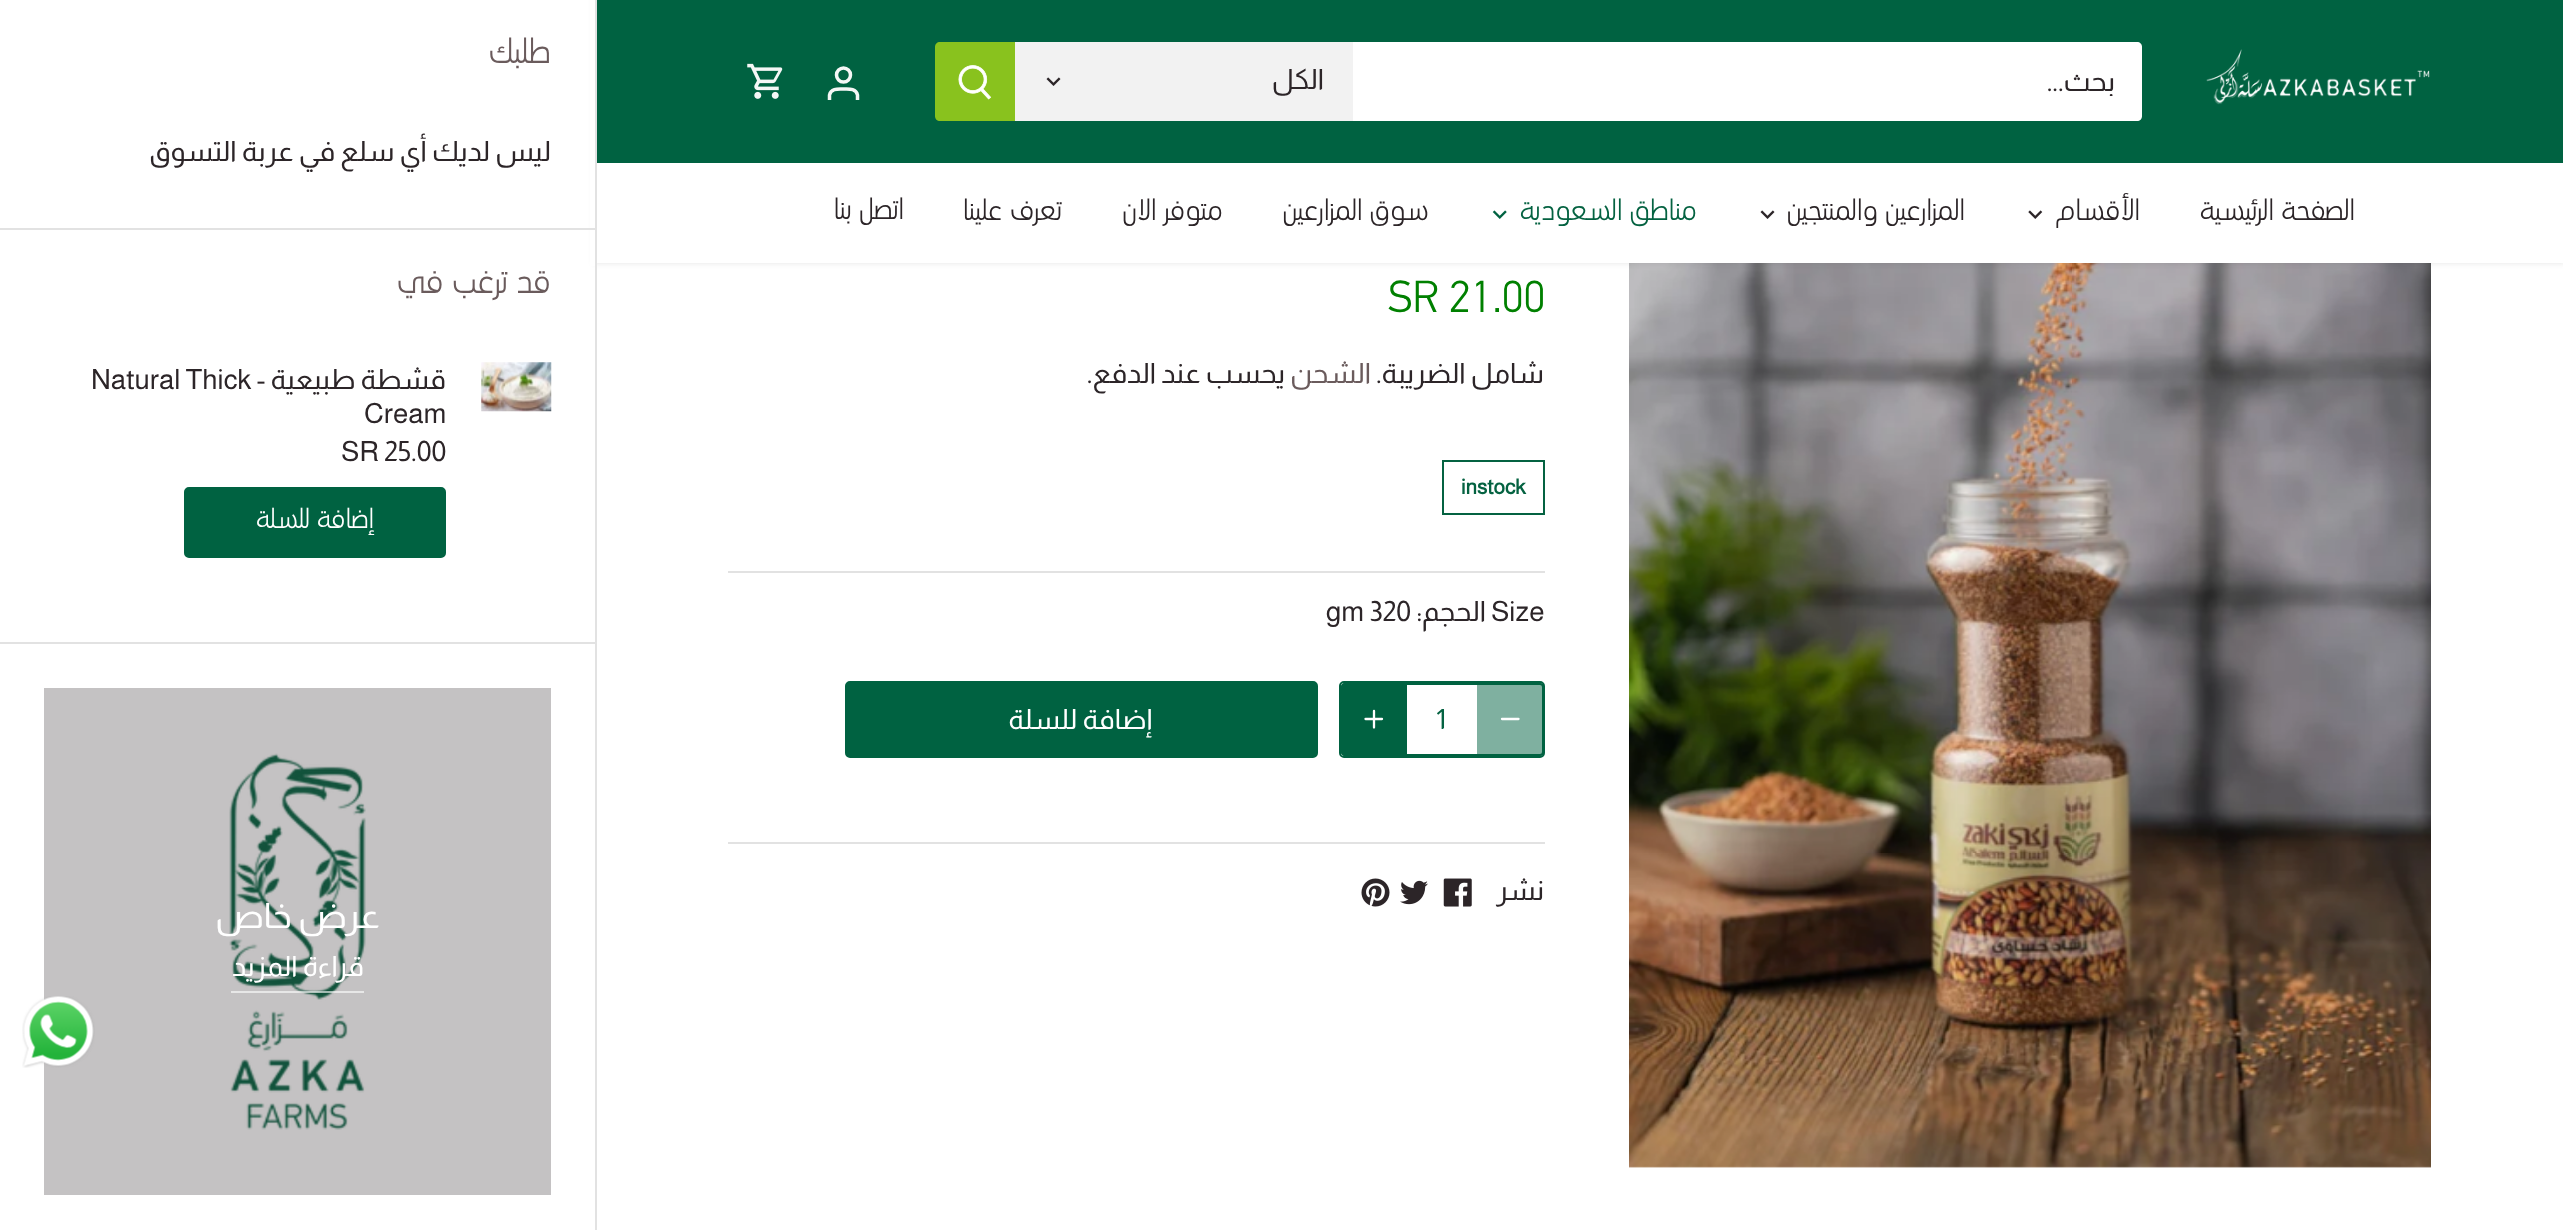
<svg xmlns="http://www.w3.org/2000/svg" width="2563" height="1230">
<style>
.a{font:28px Almarai;direction:rtl;fill:#2c2528}
.b{font:300 29.75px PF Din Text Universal;direction:rtl;fill:#2c2528}
.c{font:300 29.75px PF Din Text Universal;direction:rtl;fill:#046241}
.d{font:300 45px PF Din Text Universal;fill:#008000}
.e{font:28px Almarai;direction:rtl;fill:#6a5b5c}
.f{font:bold 21px Almarai;fill:#046241}
.g{font:28px Almarai;fill:#2c2528}
.h{font:28px Almarai;fill:#046241}
.i{font:28px Almarai;direction:rtl;fill:#fff}
.j{font:300 35px PF Din Text Universal;direction:rtl;fill:#6a5b5c}
.k{font:300 28px PF Din Text Universal;direction:rtl;fill:#fff}
.l{font:35px Almarai;direction:rtl;fill:#fff}
</style>
<defs>
<clipPath id="clip1"><path d="M1353 67h789v29H1353z"/></clipPath>
</defs>
<rect width="100%" height="100%" fill="#fff"/>
<image href="8.png" x="1629" y="263" width="802" height="905"/>
<path fill="#00000014" filter="blur(2.5px)" d="M593 -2h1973v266H593z"/>
<path fill="#fff" d="M597 163h1966v100H597z"/>
<path fill="#006241" d="M597 0h1966v163H597z"/>
<image href="1.png" x="2206" y="49" width="224" height="56"/>
<path fill="#fff" d="M1353 42h784c3 0 5 2 5 5v69c0 3-2 5-5 5h-784z"/>
<path fill="#f2f2f2" d="M1015 42h338v79H1015z"/>
<image href="2.png" x="1046" y="77" width="15" height="9"/>
<path fill="#89c21e" d="M940 42h75v79h-75c-3 0-5-2-5-5v-69c0-3 2-5 5-5z"/>
<image href="3.png" x="958" y="65" width="34" height="35"/>
<circle fill="none" stroke="#f5f7f6" stroke-width="3.5" cx="843.5" cy="75" r="7"/>
<path fill="none" stroke="#f5f7f6" stroke-width="3.5" d="M857.5 100v-5c-1.5-7-9-6-14-6c-5 0-12.5-1-14 6v5"/>
<image href="4.png" x="747" y="63" width="36" height="36"/>
<image href="5.png" x="2028" y="210" width="15" height="9"/>
<image href="6.png" x="1760" y="210" width="15" height="9"/>
<image href="7.png" x="1492" y="210" width="15" height="9"/>
<path fill="none" stroke="#046241" stroke-width="2" d="M1443 461h101v53H1443z"/>
<path fill="#e2e2e2" d="M728 571h817v2H728z"/>
<rect fill="none" stroke="#006241" stroke-width="2" x="1342" y="684" width="201" height="71" rx="3"/>
<rect fill="none" stroke="#006241" stroke-width="2" x="1340" y="682" width="204" height="75" rx="4"/>
<path fill="#00624180" d="M1477 683h63c2 0 4 2 4 4v65c0 2-2 4-4 4h-63z"/>
<path fill="none" stroke="#fff" stroke-width="2.3" stroke-linecap="round" stroke-linejoin="round" d="M1502 719h16.5"/>
<path fill="#006241" d="M1345 683h62v73h-62c-2 0-4-2-4-4v-65c0-2 2-4 4-4z"/>
<path fill="none" stroke="#fff" stroke-width="2.3" stroke-linecap="round" stroke-linejoin="round" d="M1374 711v16.5m-8.5-8.5h16.5"/>
<rect fill="#006241" stroke="#006241" stroke-width="4" x="847" y="683" width="469" height="73" rx="3"/>
<path fill="#e2e2e2" d="M728 842h817v2H728z"/>
<image href="9.png" x="1443" y="878" width="29" height="29"/>
<image href="10.png" x="1400" y="880" width="28" height="25"/>
<image href="11.png" x="1361" y="878" width="29" height="29"/>
<path fill="#fff" d="M590 0h5v266H590z"/>
<path fill="#c4c2c3" d="M44 688h507v507H44z"/>
<path fill="#e2e2e2" d="M595 0h2v1230H595z"/>
<path fill="#e2e2e2" d="M0 228h595v2H0z"/>
<image href="12.png" x="481" y="362" width="71" height="50"/>
<rect fill="#006241" stroke="#006241" stroke-width="4" x="186" y="489" width="258" height="67" rx="3"/>
<path fill="#e2e2e2" d="M0 642h595v2H0z"/>
<image href="13.png" x="229" y="753" width="137" height="377"/>
<path fill="#ffffff99" d="M231 991h133v2H231z"/>
<image href="14.png" x="22" y="996" width="73" height="72"/>
<g clip-path="url(#clip1)">
<text class="a" x="2115" y="91">بحث...</text>
</g>
<text class="a" x="1324" y="89">الكل</text>
<text class="b" x="2355" y="220">الصفحة الرئيسية</text>
<text class="b" x="2140" y="220">الأقسام</text>
<text class="b" x="1965" y="220">المزارعین والمنتجین</text>
<text class="c" x="1697" y="220">مناطق السعودية</text>
<text class="b" x="1429" y="220">سوق المزارعين</text>
<text class="b" x="1223" y="220">متوفر الان</text>
<text class="b" x="1062" y="220">تعرف علينا</text>
<text class="b" x="904" y="219">اتصل بنا</text>
<text class="d" x="1388" y="312">SR 21.00</text>
<text class="a" x="1544" y="383">شامل الضريبة.</text>
<text class="e" x="1371" y="383">الشحن</text>
<text class="a" x="1285" y="383">يحسب عند الدفع.</text>
<text class="f" x="1461" y="494">instock</text>
<text class="g" x="1491" y="621">Size</text>
<text class="a" x="1486" y="621">الحجم:</text>
<text class="g" x="1326" y="621">gm 320</text>
<text class="h" x="1436" y="729">1</text>
<text class="i" x="1152" y="729">إضافة للسلة</text>
<text class="a" x="1544" y="900">نشر</text>
<text class="j" x="551" y="63">طلبك</text>
<text class="a" x="551" y="161">ليس لديك أي سلع في عربة التسوق</text>
<text class="j" x="551" y="293">قد ترغب في</text>
<text class="a" x="446" y="389">قشطة طبيعية -</text>
<text class="g" x="91" y="389">Natural Thick</text>
<text class="g" x="364" y="423">Cream</text>
<text class="g" x="341" y="461">SR 25.00</text>
<text class="k" x="374" y="528">إضافة للسلة</text>
<text class="l" x="380" y="928">عرض خاص</text>
<text class="i" x="364" y="976">قراءة المزيد</text>
</svg>
